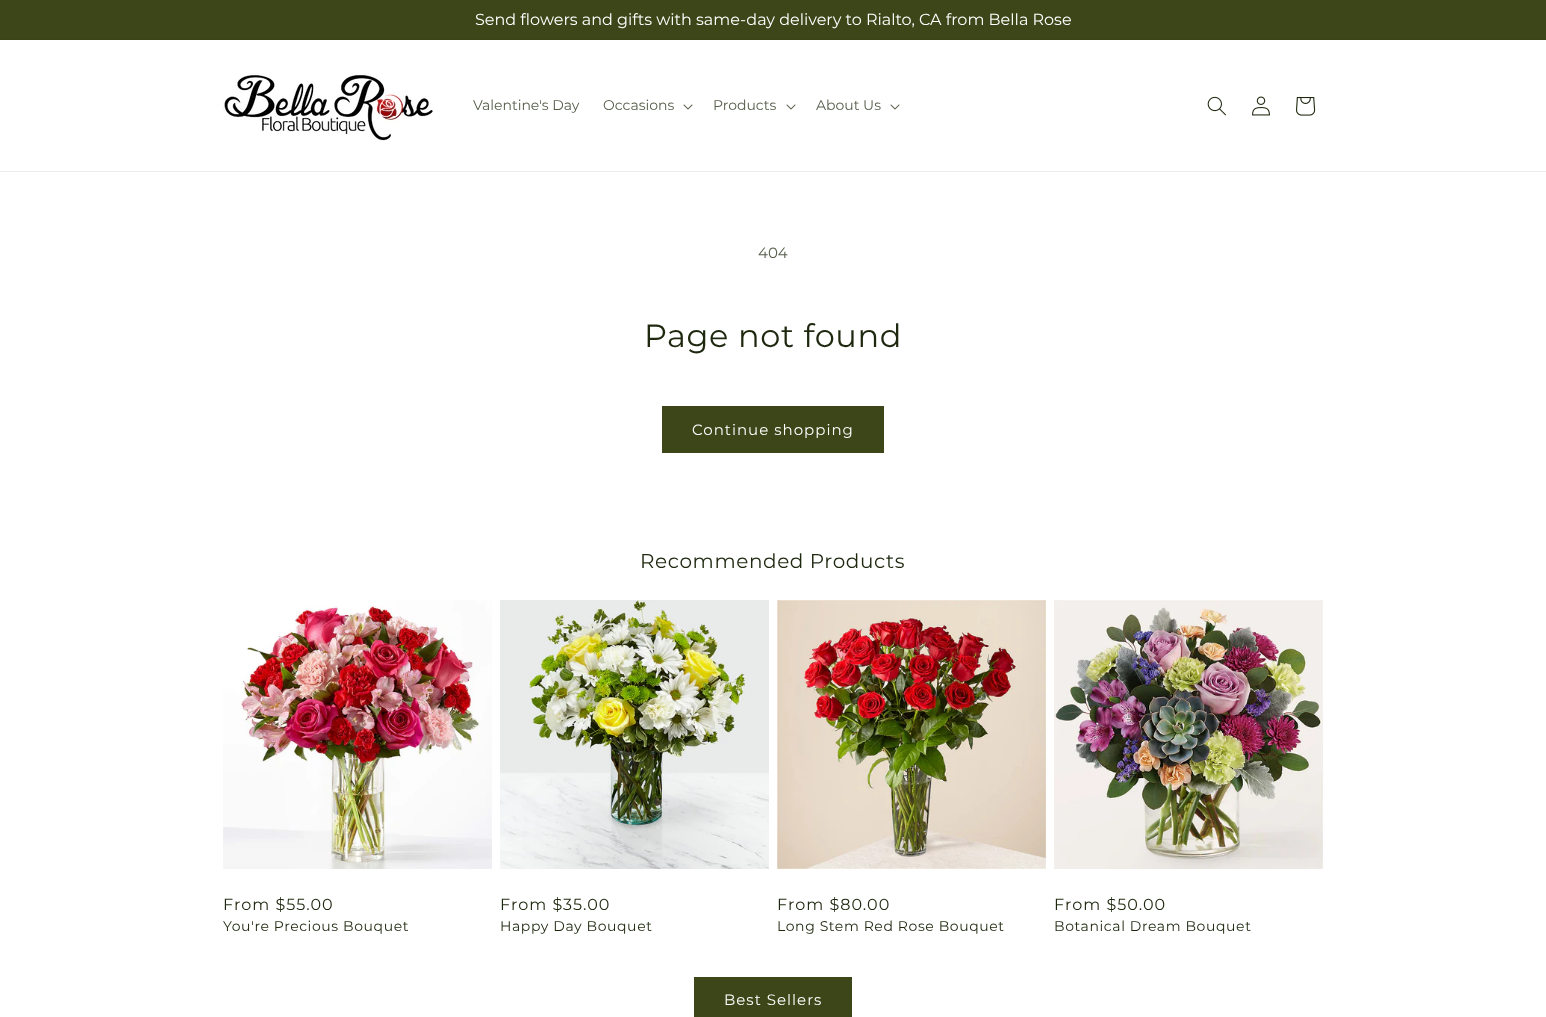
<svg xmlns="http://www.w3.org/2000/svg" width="1546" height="1017">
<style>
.a{font:16px Montserrat;fill:#fff}
.b{font:14px Montserrat;fill:#565e4b}
.c{font:15px Montserrat;fill:#565e4b}
.d{font:32px Montserrat;letter-spacing:0.6px;fill:#1e280f}
.e{font:15px Montserrat;letter-spacing:1px;fill:#fff}
.f{font:20px Montserrat;letter-spacing:0.6px;fill:#1e280f}
.g{font:16px Montserrat;letter-spacing:1px;fill:#1e280f}
.h{font:14px Montserrat;letter-spacing:0.6px;fill:#1e280f}
</style>
<rect width="100%" height="100%" fill="#fff"/>
<path fill="#3c4618" d="M0 0h1546v39H0z"/>
<path fill="#3a4417" d="M0 39h1546v1H0z"/>
<path fill="#edeeec" d="M0 171h1546v1H0z"/>
<image href="1.png" x="223" y="73" width="210" height="68"/>
<image href="2.png" x="683" y="104" width="10" height="6"/>
<image href="2.png" x="786" y="104" width="10" height="6"/>
<image href="2.png" x="890" y="104" width="10" height="6"/>
<image href="3.png" x="1207" y="96" width="19" height="20"/>
<image href="4.png" x="1252" y="96" width="18" height="20"/>
<image href="5.png" x="1296" y="97" width="20" height="19"/>
<path fill="#3c4618" d="M662 406h222v47H662z"/>
<image href="6.png" x="223" y="600" width="269" height="269"/>
<image href="7.png" x="500" y="600" width="269" height="269"/>
<image href="8.png" x="777" y="600" width="269" height="269"/>
<image href="9.png" x="1054" y="600" width="269" height="269"/>
<path fill="#3c4618" d="M694 977h158v40H694z"/>
<text class="a" x="475" y="25">Send flowers and gifts with same-day delivery to Rialto, CA from Bella Rose</text>
<text class="b" x="473" y="110">Valentine's Day</text>
<text class="b" x="603" y="110">Occasions</text>
<text class="b" x="713" y="110">Products</text>
<text class="b" x="816" y="110">About Us</text>
<text class="c" x="758" y="258">404</text>
<text class="d" x="644" y="347">Page not found</text>
<text class="e" x="692" y="435">Continue shopping</text>
<text class="f" x="640" y="568">Recommended Products</text>
<text class="g" x="223" y="910">From $55.00</text>
<text class="h" x="223" y="931">You're Precious Bouquet</text>
<text class="g" x="500" y="910">From $35.00</text>
<text class="h" x="500" y="931">Happy Day Bouquet</text>
<text class="g" x="777" y="910">From $80.00</text>
<text class="h" x="777" y="931">Long Stem Red Rose Bouquet</text>
<text class="g" x="1054" y="910">From $50.00</text>
<text class="h" x="1054" y="931">Botanical Dream Bouquet</text>
<text class="e" x="724" y="1005">Best Sellers</text>
</svg>
